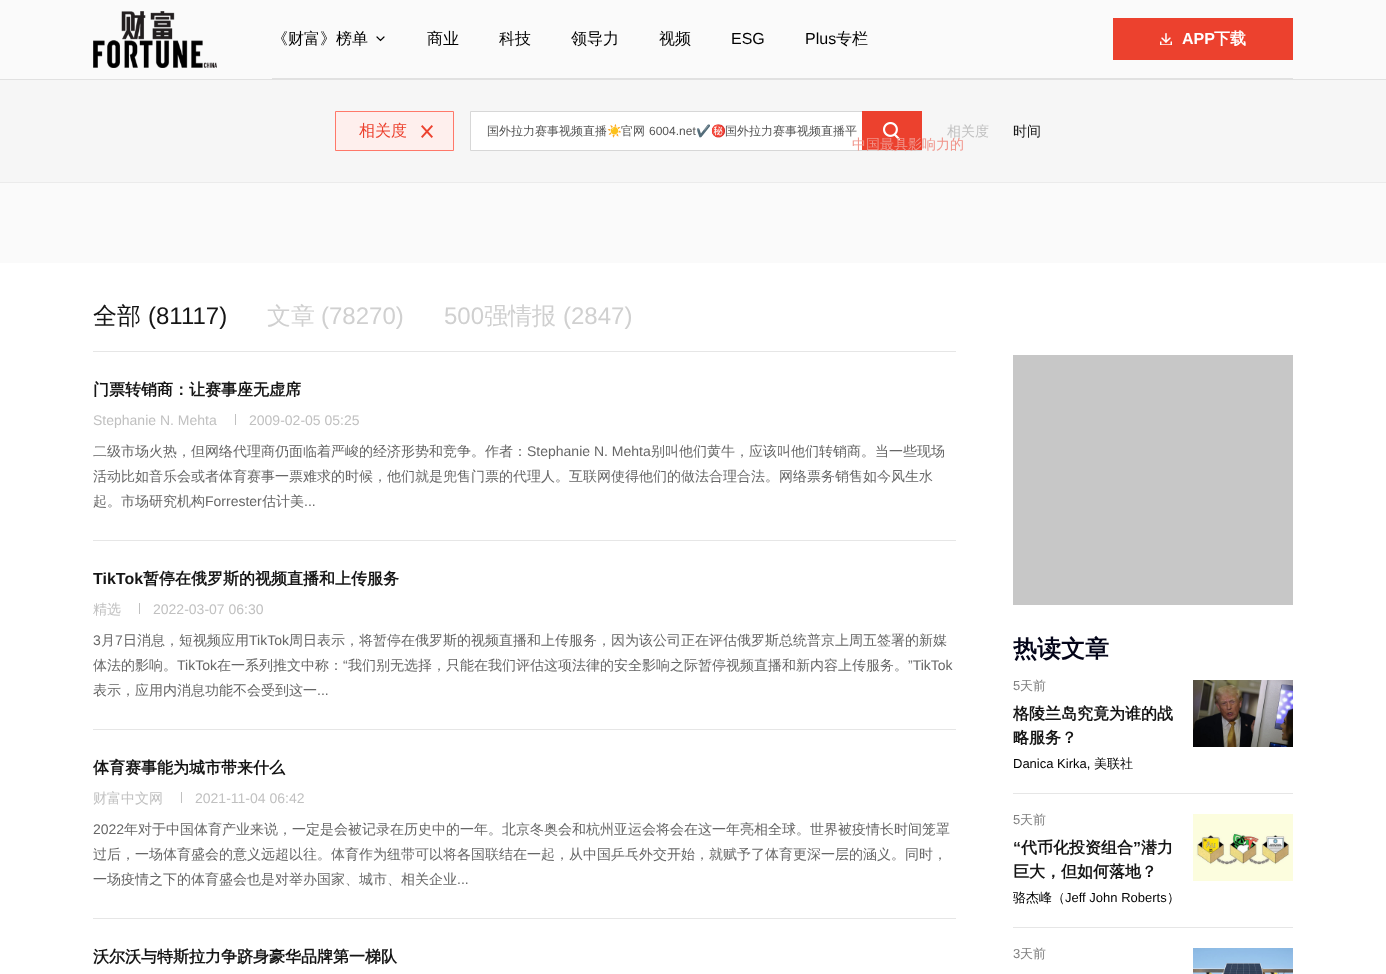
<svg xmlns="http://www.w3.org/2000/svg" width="1386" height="974">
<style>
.a{font:500 16px WenQuanYi Zen Hei;fill:#000}
.b{font:500 14px WenQuanYi Zen Hei;fill:#f09389}
.c{font:16px Liberation Sans;fill:#000}
.d{font:bold 16px Liberation Sans;fill:#fff}
.e{font:bold 16px WenQuanYi Zen Hei;fill:#fff}
.f{font:500 16px WenQuanYi Zen Hei;fill:#ec412e}
.g{font:500 12px WenQuanYi Zen Hei;fill:#545454}
.h{font:12px Noto Color Emoji;fill:#545454}
.i{font:12px Liberation Sans;fill:#545454}
.j{font:500 14px WenQuanYi Zen Hei;fill:#c0c0c0}
.k{font:500 14px WenQuanYi Zen Hei;fill:#151515}
.l{font:500 24px WenQuanYi Zen Hei;fill:#151515}
.m{font:24px Liberation Sans;fill:#151515}
.n{font:500 24px WenQuanYi Zen Hei;fill:#d0d0d0}
.o{font:24px Liberation Sans;fill:#d0d0d0}
.p{font:bold 16px WenQuanYi Zen Hei;fill:#151515}
.q{font:14px Liberation Sans;fill:#c0c0c0}
.r{font:500 14px WenQuanYi Zen Hei;fill:#666}
.s{font:14px Liberation Sans;fill:#666}
.t{font:bold 16px Liberation Sans;fill:#151515}
.u{font:bold 24px WenQuanYi Zen Hei;fill:#030418}
.v{font:13px Liberation Sans;fill:#808080}
.w{font:500 13px WenQuanYi Zen Hei;fill:#808080}
.x{font:13px Liberation Sans;fill:#000}
.y{font:500 13px WenQuanYi Zen Hei;fill:#000}
</style>
<rect width="100%" height="100%" fill="#fafafa"/>
<path fill="#e1e1e1" d="M0 79h1386v1H0z"/>
<image href="1.png" x="93" y="11" width="124" height="57"/>
<path fill="#e1e1e1" d="M272 78h1021v1H272z"/>
<path fill="none" stroke="#000" stroke-width="1.2" stroke-linecap="round" d="M377 37l3.5 3.5l3.5-3.5"/>
<path fill="#ec412e" d="M1113 18h180v42H1113z"/>
<image href="2.png" x="1160" y="33" width="12" height="12"/>
<path fill="#f6f6f6" d="M0 80h1386v102H0z"/>
<path fill="#ebebeb" d="M0 182h1386v1H0z"/>
<path fill="#feefed" stroke="#ff7869" d="M335.5 111.5h118v39H335.5z"/>
<image href="3.png" x="421" y="125" width="12" height="13"/>
<path fill="#fff" d="M471 112h391v38H471z"/>
<path fill="none" stroke="#d7d7d7" d="M470.5 111.5h451v39H470.5z"/>
<path fill="#ec412e" d="M862 111h60v39H862z"/>
<image href="4.png" x="883" y="122" width="17" height="18"/>
<path fill="#fff" d="M0 263h1386v711H0z"/>
<path fill="#e6e6e6" d="M93 351h863v1H93z"/>
<path fill="#e6e6e6" d="M93 540h863v1H93z"/>
<path fill="#c0c0c0" d="M235 414h1v11H235z"/>
<path fill="#e6e6e6" d="M93 729h863v1H93z"/>
<path fill="#c0c0c0" d="M139 603h1v11H139z"/>
<path fill="#e6e6e6" d="M93 918h863v1H93z"/>
<path fill="#c0c0c0" d="M181 792h1v11H181z"/>
<path fill="#c7c7c7" d="M1013 355h280v250H1013z"/>
<image href="5.png" x="1193" y="680" width="100" height="67"/>
<path fill="#e6e6e6" d="M1013 793h280v1H1013z"/>
<image href="6.png" x="1193" y="814" width="100" height="67"/>
<path fill="#e6e6e6" d="M1013 927h280v1H1013z"/>
<image href="7.png" x="1193" y="948" width="100" height="26"/>
<text class="a" x="272" y="44">《财富》榜单</text>
<text class="b" x="852" y="149">中国最具影响力的</text>
<text class="a" x="427" y="44">商业</text>
<text class="a" x="499" y="44">科技</text>
<text class="a" x="571" y="44">领导力</text>
<text class="a" x="659" y="44">视频</text>
<text class="c" x="731" y="44">ESG</text>
<text class="c" x="805" y="44">Plus</text>
<text class="a" x="836" y="44">专栏</text>
<text class="d" x="1182" y="44">APP</text>
<text class="e" x="1214" y="44">下载</text>
<text class="f" x="359" y="136">相关度</text>
<text class="g" x="487" y="135">国外拉力赛事视频直播</text>
<text class="h" x="607" y="135">☀️</text>
<text class="g" x="621" y="135">官网</text>
<text class="i" x="649" y="135">6004.net</text>
<text class="h" x="696" y="135">✔️㊙️️</text>
<text class="g" x="725" y="135">国外拉力赛事视频直播平</text>
<text class="j" x="947" y="136">相关度</text>
<text class="k" x="1013" y="136">时间</text>
<text class="l" x="93" y="324">全部</text>
<text class="m" x="148" y="324">(81117)</text>
<text class="n" x="267" y="324">文章</text>
<text class="o" x="321" y="324">(78270)</text>
<text class="o" x="444" y="324">500</text>
<text class="n" x="484" y="324">强情报</text>
<text class="o" x="563" y="324">(2847)</text>
<text class="p" x="93" y="395">门票转销商：让赛事座无虚席</text>
<text class="q" x="93" y="425">Stephanie N. Mehta</text>
<text class="q" x="249" y="425">2009-02-05 05:25</text>
<text class="r" x="93" y="456">二级市场火热，但网络代理商仍面临着严峻的经济形势和竞争。作者：</text>
<text class="s" x="527" y="456">Stephanie N. Mehta</text>
<text class="r" x="651" y="456">别叫他们黄牛，应该叫他们转销商。当一些现场</text>
<text class="r" x="93" y="481">活动比如音乐会或者体育赛事一票难求的时候，他们就是兜售门票的代理人。互联网使得他们的做法合理合法。网络票务销售如今风生水</text>
<text class="r" x="93" y="506">起。市场研究机构</text>
<text class="s" x="205" y="506">Forrester</text>
<text class="r" x="262" y="506">估计美</text>
<text class="s" x="304" y="506">...</text>
<text class="t" x="93" y="584">TikTok</text>
<text class="p" x="143" y="584">暂停在俄罗斯的视频直播和上传服务</text>
<text class="j" x="93" y="614">精选</text>
<text class="q" x="153" y="614">2022-03-07 06:30</text>
<text class="s" x="93" y="645">3</text>
<text class="r" x="101" y="645">月</text>
<text class="s" x="115" y="645">7</text>
<text class="r" x="123" y="645">日消息，短视频应用</text>
<text class="s" x="249" y="645">TikTok</text>
<text class="r" x="289" y="645">周日表示，将暂停在俄罗斯的视频直播和上传服务，因为该公司正在评估俄罗斯总统普京上周五签署的新媒</text>
<text class="r" x="93" y="670">体法的影响。</text>
<text class="s" x="177" y="670">TikTok</text>
<text class="r" x="217" y="670">在一系列推文中称：</text>
<text class="s" x="343" y="670">“</text>
<text class="r" x="348" y="670">我们别无选择，只能在我们评估这项法律的安全影响之际暂停视频直播和新内容上传服务。</text>
<text class="s" x="908" y="670">”TikTok</text>
<text class="r" x="93" y="695">表示，应用内消息功能不会受到这一</text>
<text class="s" x="317" y="695">...</text>
<text class="p" x="93" y="773">体育赛事能为城市带来什么</text>
<text class="j" x="93" y="803">财富中文网</text>
<text class="q" x="195" y="803">2021-11-04 06:42</text>
<text class="s" x="93" y="834">2022</text>
<text class="r" x="124" y="834">年对于中国体育产业来说，一定是会被记录在历史中的一年。北京冬奥会和杭州亚运会将会在这一年亮相全球。世界被疫情长时间笼罩</text>
<text class="r" x="93" y="859">过后，一场体育盛会的意义远超以往。体育作为纽带可以将各国联结在一起，从中国乒乓外交开始，就赋予了体育更深一层的涵义。同时，</text>
<text class="r" x="93" y="884">一场疫情之下的体育盛会也是对举办国家、城市、相关企业</text>
<text class="s" x="457" y="884">...</text>
<text class="p" x="93" y="962">沃尔沃与特斯拉力争跻身豪华品牌第一梯队</text>
<text class="u" x="1013" y="657">热读文章</text>
<text class="v" x="1013" y="690">5</text>
<text class="w" x="1020" y="690">天前</text>
<text class="x" x="1013" y="768">Danica Kirka,</text>
<text class="y" x="1094" y="768">美联社</text>
<text class="p" x="1013" y="719">格陵兰岛究竟为谁的战</text>
<text class="p" x="1013" y="743">略服务？</text>
<text class="v" x="1013" y="824">5</text>
<text class="w" x="1020" y="824">天前</text>
<text class="y" x="1013" y="902">骆杰峰（</text>
<text class="x" x="1065" y="902">Jeff John Roberts</text>
<text class="y" x="1167" y="902">）</text>
<text class="t" x="1013" y="853">“</text>
<text class="p" x="1021" y="853">代币化投资组合</text>
<text class="t" x="1133" y="853">”</text>
<text class="p" x="1141" y="853">潜力</text>
<text class="p" x="1013" y="877">巨大，但如何落地？</text>
<text class="v" x="1013" y="958">3</text>
<text class="w" x="1020" y="958">天前</text>
</svg>
